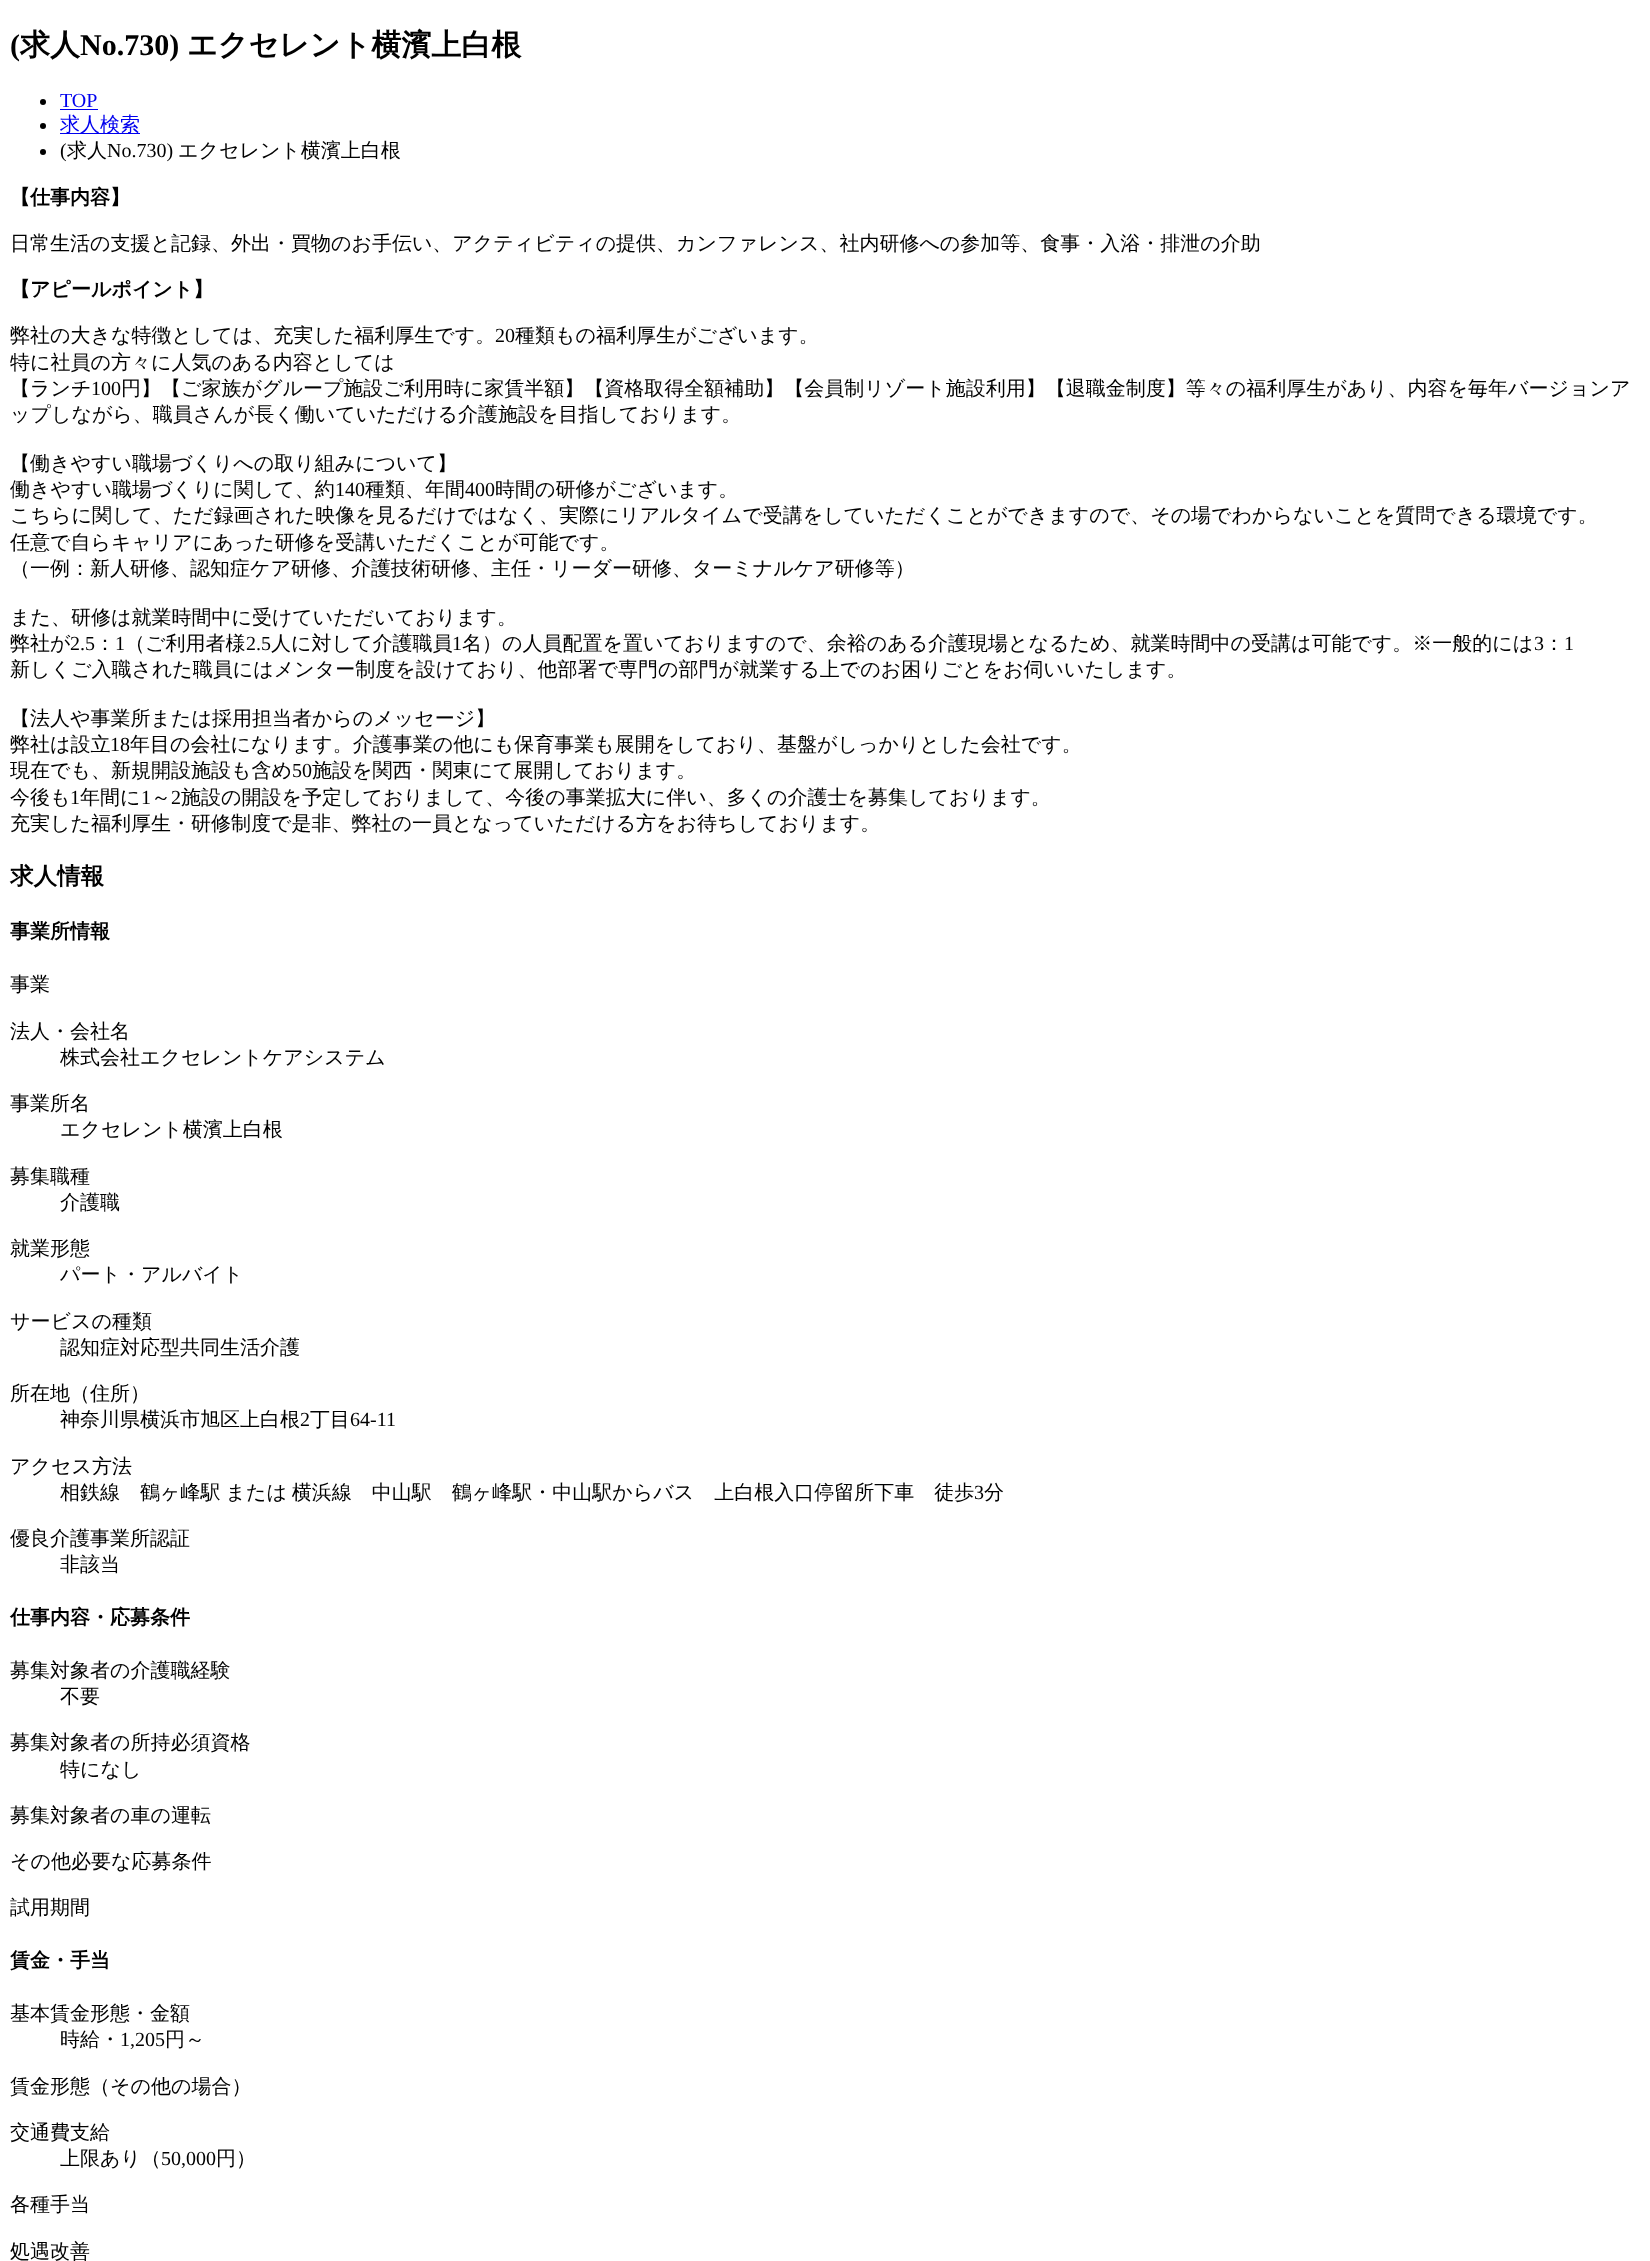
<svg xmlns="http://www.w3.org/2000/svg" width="1650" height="2261">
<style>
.a{font:bold 30px Liberation Serif;fill:#000}
.b{font:bold 30px WenQuanYi Zen Hei;fill:#000}
.c{font:20px Liberation Serif;fill:#00e}
.d{font:500 20px WenQuanYi Zen Hei;fill:#00e}
.e{font:20px Liberation Serif;fill:#000}
.f{font:500 20px WenQuanYi Zen Hei;fill:#000}
.g{font:bold 20px WenQuanYi Zen Hei;fill:#000}
.h{font:bold 23.5px WenQuanYi Zen Hei;fill:#000}
</style>
<rect width="100%" height="100%" fill="#fff"/>
<circle fill="#000" cx="43" cy="102" r="3"/>
<path fill="#00e" d="M60 109h38v1H60z"/>
<circle fill="#000" cx="43" cy="126" r="3"/>
<path fill="#00e" d="M60 133h80v1H60z"/>
<circle fill="#000" cx="43" cy="152" r="3"/>
<text class="a" x="10" y="55">(</text>
<text class="b" x="20" y="55">求人</text>
<text class="a" x="80" y="55">No.730)</text>
<text class="b" x="187" y="55">エクセレント横濱上白根</text>
<text class="c" x="60" y="107">TOP</text>
<text class="d" x="60" y="131">求人検索</text>
<text class="e" x="60" y="157">(</text>
<text class="f" x="67" y="157">求人</text>
<text class="e" x="107" y="157">No.730)</text>
<text class="f" x="178" y="157">エクセレント横濱上白根</text>
<text class="g" x="10" y="204">【仕事内容】</text>
<text class="f" x="10" y="250">日常生活の支援と記録、外出・買物のお手伝い、アクティビティの提供、カンファレンス、社内研修への参加等、食事・入浴・排泄の介助</text>
<text class="g" x="10" y="296">【アピールポイント】</text>
<text class="f" x="10" y="342">弊社の大きな特徴としては、充実した福利厚生です。</text>
<text class="e" x="495" y="342">20</text>
<text class="f" x="515" y="342">種類もの福利厚生がございます。</text>
<text class="f" x="10" y="369">特に社員の方々に人気のある内容としては</text>
<text class="f" x="10" y="395">【ランチ</text>
<text class="e" x="91" y="395">100</text>
<text class="f" x="121" y="395">円】【ご家族がグループ施設ご利用時に家賃半額】【資格取得全額補助】【会員制リゾート施設利用】【退職金制度】等々の福利厚生があり、内容を毎年バージョンア</text>
<text class="f" x="10" y="421">ップしながら、職員さんが長く働いていただける介護施設を目指しております。</text>
<text class="f" x="10" y="470">【働きやすい職場づくりへの取り組みについて】</text>
<text class="f" x="10" y="496">働きやすい職場づくりに関して、約</text>
<text class="e" x="335" y="496">140</text>
<text class="f" x="365" y="496">種類、年間</text>
<text class="e" x="465" y="496">400</text>
<text class="f" x="495" y="496">時間の研修がございます。</text>
<text class="f" x="10" y="522">こちらに関して、ただ録画された映像を見るだけではなく、実際にリアルタイムで受講をしていただくことができますので、その場でわからないことを質問できる環境です。</text>
<text class="f" x="10" y="549">任意で自らキャリアにあった研修を受講いただくことが可能です。</text>
<text class="f" x="10" y="575">（一例：新人研修、認知症ケア研修、介護技術研修、主任・リーダー研修、ターミナルケア研修等）</text>
<text class="f" x="10" y="624">また、研修は就業時間中に受けていただいております。</text>
<text class="f" x="10" y="650">弊社が</text>
<text class="e" x="70" y="650">2.5</text>
<text class="f" x="95" y="650">：</text>
<text class="e" x="115" y="650">1</text>
<text class="f" x="125" y="650">（ご利用者様</text>
<text class="e" x="246" y="650">2.5</text>
<text class="f" x="271" y="650">人に対して介護職員</text>
<text class="e" x="452" y="650">1</text>
<text class="f" x="462" y="650">名）の人員配置を置いておりますので、余裕のある介護現場となるため、就業時間中の受講は可能です。※一般的には</text>
<text class="e" x="1534" y="650">3</text>
<text class="f" x="1544" y="650">：</text>
<text class="e" x="1564" y="650">1</text>
<text class="f" x="10" y="676">新しくご入職された職員にはメンター制度を設けており、他部署で専門の部門が就業する上でのお困りごとをお伺いいたします。</text>
<text class="f" x="10" y="725">【法人や事業所または採用担当者からのメッセージ】</text>
<text class="f" x="10" y="751">弊社は設立</text>
<text class="e" x="110" y="751">18</text>
<text class="f" x="130" y="751">年目の会社になります。介護事業の他にも保育事業も展開をしており、基盤がしっかりとした会社です。</text>
<text class="f" x="10" y="777">現在でも、新規開設施設も含め</text>
<text class="e" x="292" y="777">50</text>
<text class="f" x="312" y="777">施設を関西・関東にて展開しております。</text>
<text class="f" x="10" y="804">今後も</text>
<text class="e" x="70" y="804">1</text>
<text class="f" x="80" y="804">年間に</text>
<text class="e" x="141" y="804">1</text>
<text class="f" x="151" y="804">～</text>
<text class="e" x="171" y="804">2</text>
<text class="f" x="181" y="804">施設の開設を予定しておりまして、今後の事業拡大に伴い、多くの介護士を募集しております。</text>
<text class="f" x="10" y="830">充実した福利厚生・研修制度で是非、弊社の一員となっていただける方をお待ちしております。</text>
<text class="h" x="10" y="884">求人情報</text>
<text class="g" x="10" y="938">事業所情報</text>
<text class="f" x="10" y="991">事業</text>
<text class="f" x="10" y="1038">法人・会社名</text>
<text class="f" x="60" y="1064">株式会社エクセレントケアシステム</text>
<text class="f" x="10" y="1110">事業所名</text>
<text class="f" x="60" y="1136">エクセレント横濱上白根</text>
<text class="f" x="10" y="1183">募集職種</text>
<text class="f" x="60" y="1209">介護職</text>
<text class="f" x="10" y="1255">就業形態</text>
<text class="f" x="60" y="1281">パート・アルバイト</text>
<text class="f" x="10" y="1328">サービスの種類</text>
<text class="f" x="60" y="1354">認知症対応型共同生活介護</text>
<text class="f" x="10" y="1400">所在地（住所）</text>
<text class="f" x="60" y="1426">神奈川県横浜市旭区上白根</text>
<text class="e" x="300" y="1426">2</text>
<text class="f" x="310" y="1426">丁目</text>
<text class="e" x="350" y="1426">64-11</text>
<text class="f" x="10" y="1473">アクセス方法</text>
<text class="f" x="60" y="1499" word-spacing="-1">相鉄線　鶴ヶ峰駅 または 横浜線　中山駅　鶴ヶ峰駅・中山駅からバス　上白根入口停留所下車　徒歩</text>
<text class="e" x="974" y="1499">3</text>
<text class="f" x="984" y="1499">分</text>
<text class="f" x="10" y="1545">優良介護事業所認証</text>
<text class="f" x="60" y="1571">非該当</text>
<text class="g" x="10" y="1624">仕事内容・応募条件</text>
<text class="f" x="10" y="1677">募集対象者の介護職経験</text>
<text class="f" x="60" y="1703">不要</text>
<text class="f" x="10" y="1749">募集対象者の所持必須資格</text>
<text class="f" x="60" y="1776">特になし</text>
<text class="f" x="10" y="1822">募集対象者の車の運転</text>
<text class="f" x="10" y="1868">その他必要な応募条件</text>
<text class="f" x="10" y="1914">試用期間</text>
<text class="g" x="10" y="1967">賃金・手当</text>
<text class="f" x="10" y="2020">基本賃金形態・金額</text>
<text class="f" x="60" y="2046">時給・</text>
<text class="e" x="120" y="2046">1,205</text>
<text class="f" x="165" y="2046">円～</text>
<text class="f" x="10" y="2093">賃金形態（その他の場合）</text>
<text class="f" x="10" y="2139">交通費支給</text>
<text class="f" x="60" y="2165">上限あり（</text>
<text class="e" x="161" y="2165">50,000</text>
<text class="f" x="216" y="2165">円）</text>
<text class="f" x="10" y="2211">各種手当</text>
<text class="f" x="10" y="2258">処遇改善</text>
</svg>
